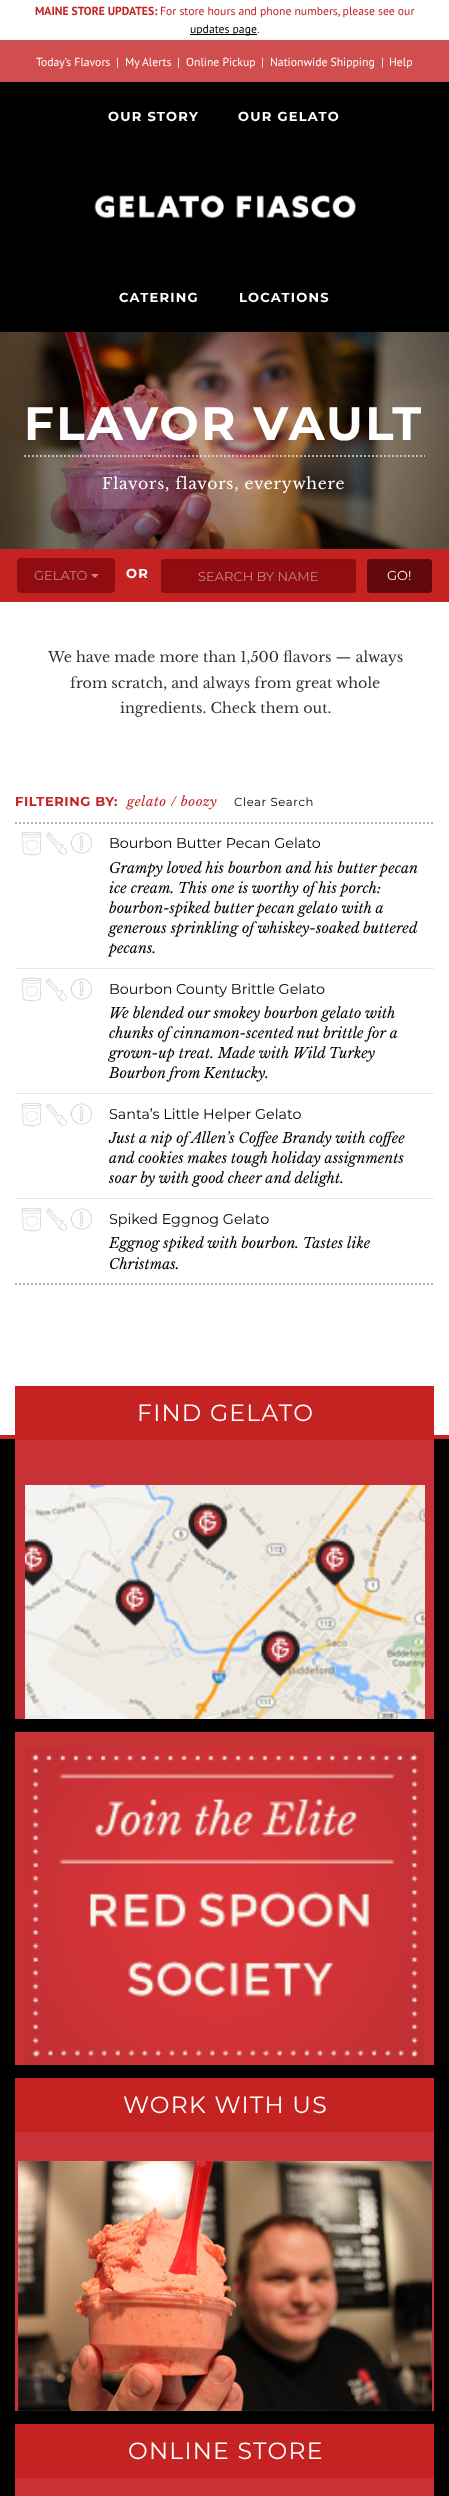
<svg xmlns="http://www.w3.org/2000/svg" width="449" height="2496">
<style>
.a{font:bold 11.7px PT Sans;fill:#c52222}
.b{font:11.7px PT Sans;fill:#c52222}
.c{font:11.7px PT Sans;fill:#000}
.d{font:11.7px PT Sans;fill:#fff}
.e{font:bold 13px Montserrat;letter-spacing:1.25px;fill:#fff}
.f{font:bold 46.75px Montserrat;letter-spacing:2.3px;fill:#fff}
.g{font:15.6px Libre Baskerville;letter-spacing:0.75px;fill:#fff}
.h{font:13px Montserrat;fill:#c88688}
.i{font:13px Montserrat;fill:#fff}
.j{font:14.3px Libre Baskerville;fill:#333}
.k{font:bold 13px Montserrat;letter-spacing:0.6px;fill:#c52222}
.l{font:italic 13px Libre Baskerville;letter-spacing:0.6px;fill:#c52222}
.m{font:11.7px Montserrat;letter-spacing:0.6px;fill:#000}
.n{font:14.3px Montserrat;fill:#000}
.o{font:italic 14.3px Libre Baskerville;fill:#000}
.p{font:23.5px Montserrat;letter-spacing:1.25px;fill:#fff}
</style>
<rect width="100%" height="100%" fill="#fff"/>
<path fill="#d14e4e" d="M0 40h449v42H0z"/>
<path fill="#000" d="M190 34h67v1H190z"/>
<path fill="#000" d="M0 82h449v250H0z"/>
<image href="1.png" x="94" y="195" width="262" height="23"/>
<image href="2.png" x="0" y="332" width="449" height="217"/>
<path fill="none" stroke="#ffffff99" stroke-width="2" stroke-dasharray="2 2" d="M24 456h401"/>
<path fill="#c52222" d="M0 549h449v53H0z"/>
<rect fill="#910c10" stroke="#910c10" x="17.5" y="558.5" width="97" height="34" rx="3.5"/>
<path fill="#c88688" d="M91 574h8l-4 4z"/>
<rect fill="#910c10" x="161" y="559" width="195" height="34" rx="4"/>
<path fill="#860b0f" d="M165 561h187c2 0 3 1 3 3c0-2-1-4-3-4h-187c-2 0-3 2-3 4c0-2 1-3 3-3z"/>
<rect fill="none" stroke="#910c10" x="161.5" y="559.5" width="194" height="33" rx="3.5"/>
<rect fill="#62080b" x="367" y="559" width="65" height="34" rx="4"/>
<path fill="#5b070a" d="M371 561h57c2 0 3 1 3 3c0-6-8-4-13-4h-38c-4 0-12-2-12 4c0-2 1-3 3-3z"/>
<rect fill="none" stroke="#62080b" x="367.5" y="559.5" width="64" height="33" rx="3.5"/>
<path fill="none" stroke="#b3b3b3" stroke-width="2" stroke-dasharray="2 2" d="M15 823h419"/>
<path fill="none" stroke="#b3b3b3" stroke-width="2" stroke-dasharray="2 2" d="M15 1284h419"/>
<path fill="#e6e6e6" d="M15 968h419v1H15z"/>
<image href="3.png" x="21" y="831" width="21" height="25"/>
<image href="4.png" x="45" y="832" width="22" height="23"/>
<image href="5.png" x="70" y="832" width="22" height="22"/>
<path fill="#e6e6e6" d="M15 1093h419v1H15z"/>
<image href="3.png" x="21" y="977" width="21" height="25"/>
<image href="4.png" x="45" y="978" width="22" height="23"/>
<image href="5.png" x="70" y="978" width="22" height="22"/>
<path fill="#e6e6e6" d="M15 1198h419v1H15z"/>
<image href="3.png" x="21" y="1102" width="21" height="25"/>
<image href="4.png" x="45" y="1103" width="22" height="23"/>
<image href="5.png" x="70" y="1103" width="22" height="22"/>
<image href="3.png" x="21" y="1207" width="21" height="25"/>
<image href="4.png" x="45" y="1208" width="22" height="23"/>
<image href="5.png" x="70" y="1208" width="22" height="22"/>
<path fill="#000" d="M0 1439h449v1057H0z"/>
<path fill="#c52222" d="M0 1435h449v4H0z"/>
<path fill="#c83136" d="M15 1440h419v279H15z"/>
<path fill="#c52222" d="M15 1386h419v54H15z"/>
<image href="6.png" x="25" y="1485" width="400" height="234"/>
<path fill="#c83136" d="M15 1732h419v333H15z"/>
<image href="7.png" x="25" y="1747" width="400" height="318"/>
<path fill="#c83136" d="M15 2132h419v279H15z"/>
<path fill="#c52222" d="M15 2078h419v54H15z"/>
<image href="8.png" x="18" y="2161" width="414" height="250"/>
<path fill="#c83136" d="M15 2478h419v18H15z"/>
<path fill="#c52222" d="M15 2424h419v54H15z"/>
<text class="a" x="35" y="15">MAINE STORE UPDATES:</text>
<text class="b" x="160" y="15">For store hours and phone numbers, please see our</text>
<text class="c" x="190" y="33">updates page</text>
<text class="b" x="257" y="33">.</text>
<text class="d" x="36" y="66">Today’s Flavors</text>
<text class="d" x="116" y="66">|</text>
<text class="d" x="125" y="66">My Alerts</text>
<text class="d" x="177" y="66">|</text>
<text class="d" x="186" y="66">Online Pickup</text>
<text class="d" x="261" y="66">|</text>
<text class="d" x="270" y="66">Nationwide Shipping</text>
<text class="d" x="381" y="66">|</text>
<text class="d" x="389" y="66">Help</text>
<text class="e" x="108" y="121">OUR STORY</text>
<text class="e" x="238" y="121">OUR GELATO</text>
<text class="e" x="119" y="302">CATERING</text>
<text class="e" x="239" y="302">LOCATIONS</text>
<text class="f" x="24" y="440">FLAVOR VAULT</text>
<text class="g" x="102" y="489">Flavors, flavors, everywhere</text>
<text class="h" x="34" y="580">GELATO</text>
<text class="e" x="126" y="578">OR</text>
<text class="h" x="198" y="581">SEARCH BY NAME</text>
<text class="i" x="387" y="580">GO!</text>
<text class="j" x="48" y="662">We have made more than 1,500 flavors — always</text>
<text class="j" x="70" y="688">from scratch, and always from great whole</text>
<text class="j" x="120" y="713">ingredients. Check them out.</text>
<text class="k" x="15" y="806">FILTERING BY:</text>
<text class="l" x="127" y="806">gelato / boozy</text>
<text class="m" x="234" y="806">Clear Search</text>
<text class="n" x="109" y="848">Bourbon Butter Pecan Gelato</text>
<text class="o" x="109" y="873">Grampy loved his bourbon and his butter pecan</text>
<text class="o" x="109" y="893">ice cream. This one is worthy of his porch:</text>
<text class="o" x="109" y="913">bourbon-spiked butter pecan gelato with a</text>
<text class="o" x="109" y="933">generous sprinkling of whiskey-soaked buttered</text>
<text class="o" x="109" y="953">pecans.</text>
<text class="n" x="109" y="994">Bourbon County Brittle Gelato</text>
<text class="o" x="109" y="1018">We blended our smokey bourbon gelato with</text>
<text class="o" x="109" y="1038">chunks of cinnamon-scented nut brittle for a</text>
<text class="o" x="109" y="1058">grown-up treat. Made with Wild Turkey</text>
<text class="o" x="109" y="1078">Bourbon from Kentucky.</text>
<text class="n" x="109" y="1119">Santa’s Little Helper Gelato</text>
<text class="o" x="109" y="1143">Just a nip of Allen’s Coffee Brandy with coffee</text>
<text class="o" x="109" y="1163">and cookies makes tough holiday assignments</text>
<text class="o" x="109" y="1183">soar by with good cheer and delight.</text>
<text class="n" x="109" y="1224">Spiked Eggnog Gelato</text>
<text class="o" x="109" y="1248">Eggnog spiked with bourbon. Tastes like</text>
<text class="o" x="109" y="1269">Christmas.</text>
<text class="p" x="137" y="1421">FIND GELATO</text>
<text class="p" x="123" y="2113">WORK WITH US</text>
<text class="p" x="128" y="2459">ONLINE STORE</text>
</svg>
